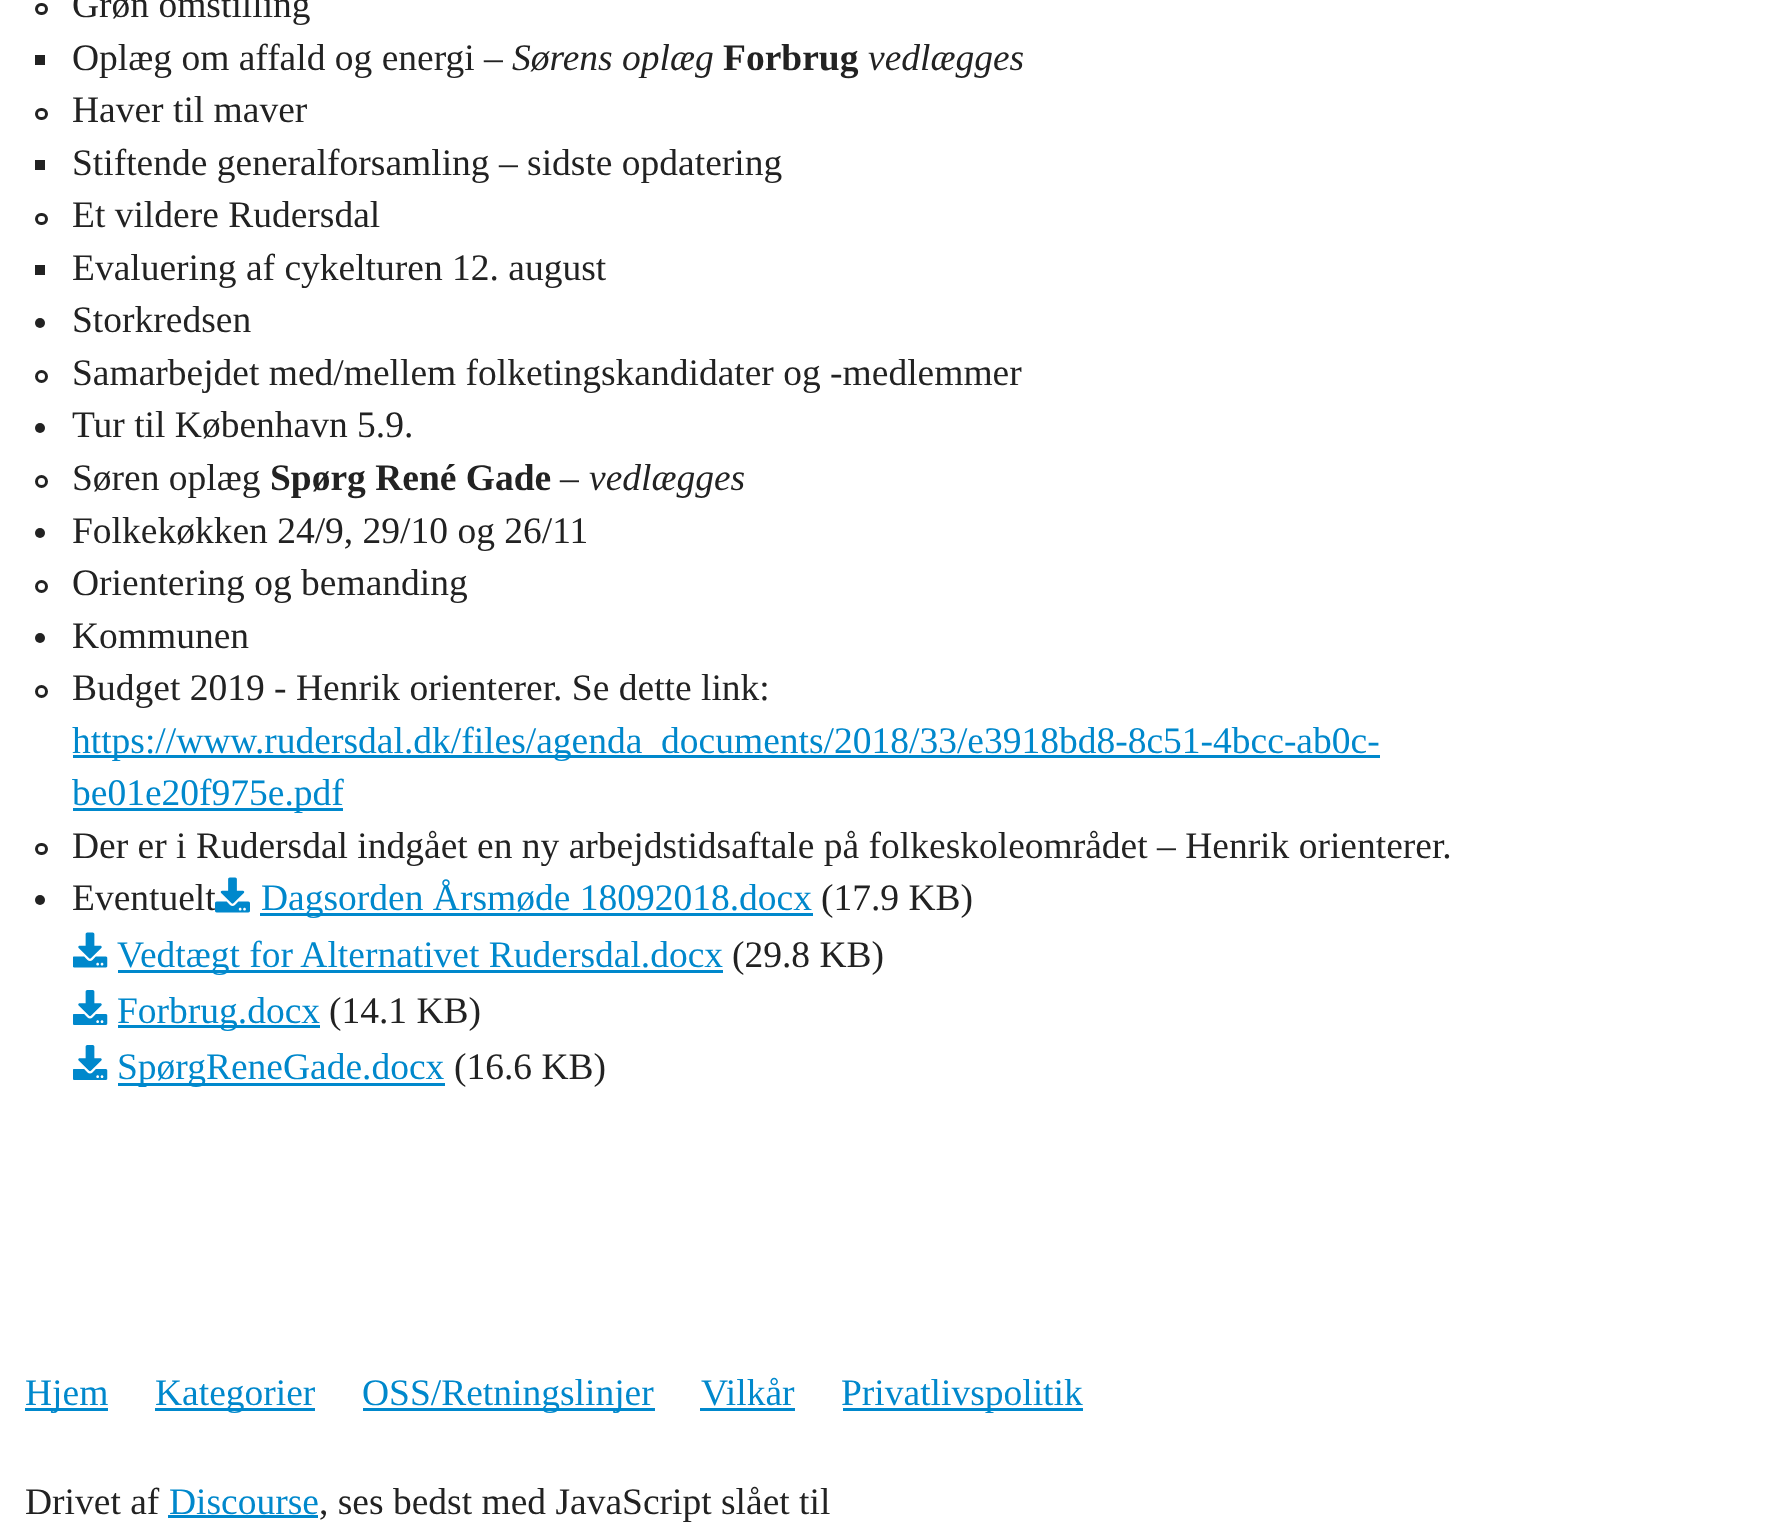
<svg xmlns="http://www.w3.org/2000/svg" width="1771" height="1533">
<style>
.a{font:37.5px Liberation Serif;fill:#222}
.b{font:italic 37.5px Liberation Serif;fill:#222}
.c{font:bold 37.5px Liberation Serif;fill:#222}
.d{font:37.5px Liberation Serif;fill:#08c}
</style>
<rect width="100%" height="100%" fill="#fff"/>
<rect fill="none" stroke="#222" stroke-width="3" x="36.5" y="4.5" width="10" height="9" rx="4.5"/>
<path fill="#222" d="M35 55h10v10H35z"/>
<rect fill="none" stroke="#222" stroke-width="3" x="36.5" y="109.5" width="10" height="9" rx="4.5"/>
<path fill="#222" d="M35 160h10v10H35z"/>
<rect fill="none" stroke="#222" stroke-width="3" x="36.5" y="214.5" width="10" height="9" rx="4.5"/>
<path fill="#222" d="M35 265h10v10H35z"/>
<circle fill="#222" cx="40" cy="323" r="5"/>
<circle fill="none" stroke="#222" stroke-width="3" cx="41.5" cy="376.5" r="5"/>
<circle fill="#222" cx="40" cy="428" r="5"/>
<circle fill="none" stroke="#222" stroke-width="3" cx="41.5" cy="481.5" r="5"/>
<circle fill="#222" cx="40" cy="533" r="5"/>
<circle fill="none" stroke="#222" stroke-width="3" cx="41.5" cy="586.5" r="5"/>
<circle fill="#222" cx="40" cy="638" r="5"/>
<circle fill="none" stroke="#222" stroke-width="3" cx="41.5" cy="691.5" r="5"/>
<path fill="#08c" d="M73 755h1307v3H73z"/>
<path fill="#08c" d="M73 808h270v3H73z"/>
<rect fill="none" stroke="#222" stroke-width="3" x="36.5" y="844.5" width="10" height="9" rx="4.5"/>
<circle fill="#222" cx="40" cy="900" r="5"/>
<path fill="#08c" d="M260 913h553v3H260z"/>
<image href="2.png" x="73" y="932" width="35" height="36"/>
<path fill="#08c" d="M118 970h605v3H118z"/>
<image href="3.png" x="73" y="990" width="35" height="35"/>
<path fill="#08c" d="M118 1025h202v3H118z"/>
<image href="3.png" x="73" y="1045" width="35" height="35"/>
<path fill="#08c" d="M118 1083h327v3H118z"/>
<path fill="#08c" d="M25 1408h83v3H25z"/>
<path fill="#08c" d="M155 1408h160v3H155z"/>
<path fill="#08c" d="M363 1408h292v3H363z"/>
<path fill="#08c" d="M700 1408h95v3H700z"/>
<path fill="#08c" d="M843 1408h240v3H843z"/>
<path fill="#08c" d="M168 1515h150v3H168z"/>
<text class="a" x="72" y="17">Grøn omstilling</text>
<text class="a" x="72" y="70">Oplæg om affald og energi –</text>
<text class="b" x="512" y="70">Sørens oplæg</text>
<text class="c" x="723" y="70">Forbrug</text>
<text class="b" x="868" y="70">vedlægges</text>
<text class="a" x="72" y="122">Haver til maver</text>
<text class="a" x="72" y="175">Stiftende generalforsamling – sidste opdatering</text>
<text class="a" x="72" y="227">Et vildere Rudersdal</text>
<text class="a" x="72" y="280">Evaluering af cykelturen 12. august</text>
<text class="a" x="72" y="332">Storkredsen</text>
<text class="a" x="72" y="385">Samarbejdet med/mellem folketingskandidater og -medlemmer</text>
<text class="a" x="72" y="437">Tur til København 5.9.</text>
<text class="a" x="72" y="490">Søren oplæg</text>
<text class="c" x="270" y="490">Spørg René Gade</text>
<text class="a" x="560" y="490">–</text>
<text class="b" x="589" y="490">vedlægges</text>
<text class="a" x="72" y="543">Folkekøkken 24/9, 29/10 og 26/11</text>
<text class="a" x="72" y="595">Orientering og bemanding</text>
<text class="a" x="72" y="648">Kommunen</text>
<text class="a" x="72" y="700">Budget 2019 - Henrik orienterer. Se dette link:</text>
<text class="d" x="72" y="753">https://www.rudersdal.dk/files/agenda_documents/2018/33/e3918bd8-8c51-4bcc-ab0c-</text>
<text class="d" x="72" y="805">be01e20f975e.pdf</text>
<text class="a" x="72" y="858">Der er i Rudersdal indgået en ny arbejdstidsaftale på folkeskoleområdet – Henrik orienterer.</text>
<text class="a" x="72" y="910">Eventuelt</text>
<image href="1.png" x="215" y="877" width="35" height="36"/>
<text class="d" x="261" y="910">Dagsorden Årsmøde 18092018.docx</text>
<text class="a" x="821" y="910">(17.9 KB)</text>
<text class="d" x="117" y="967">Vedtægt for Alternativet Rudersdal.docx</text>
<text class="a" x="732" y="967">(29.8 KB)</text>
<text class="d" x="117" y="1023">Forbrug.docx</text>
<text class="a" x="329" y="1023">(14.1 KB)</text>
<text class="d" x="117" y="1079">SpørgReneGade.docx</text>
<text class="a" x="454" y="1079">(16.6 KB)</text>
<text class="d" x="25" y="1405">Hjem</text>
<text class="d" x="155" y="1405">Kategorier</text>
<text class="d" x="362" y="1405">OSS/Retningslinjer</text>
<text class="d" x="701" y="1405">Vilkår</text>
<text class="d" x="841" y="1405">Privatlivspolitik</text>
<text class="a" x="25" y="1514">Drivet af</text>
<text class="d" x="169" y="1514">Discourse</text>
<text class="a" x="319" y="1514">, ses bedst med JavaScript slået til</text>
</svg>
